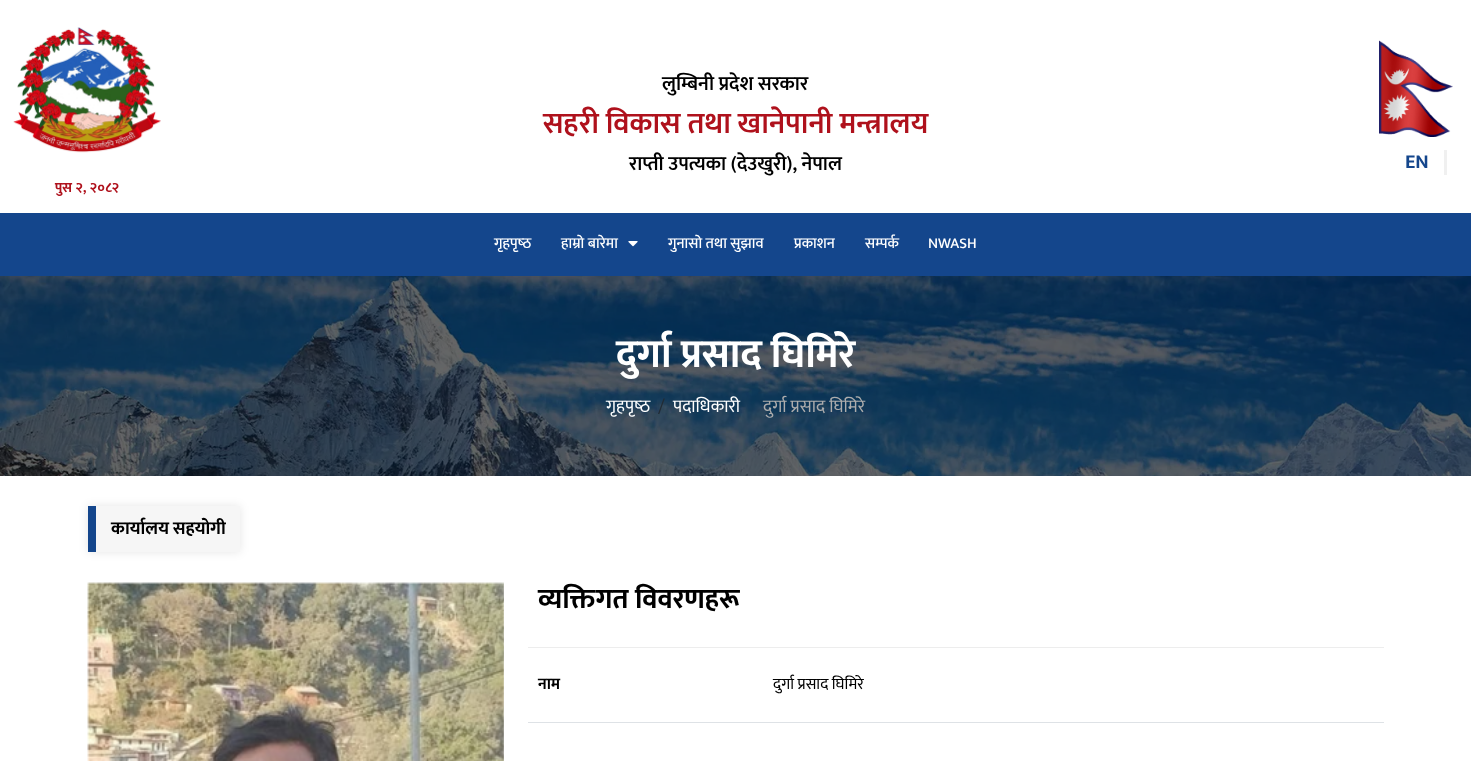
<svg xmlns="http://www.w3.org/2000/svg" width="1471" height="761">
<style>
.a{font:600 20px Mukta;fill:#000}
.b{font:600 30px Mukta;fill:#af111c}
.c{font:bold 20px Mukta;fill:#14468c}
.d{font:bold 14px Mukta;fill:#af111c}
.e{font:500 15px Mukta;fill:#fff}
.f{font:bold 40px Mukta;fill:#fff}
.g{font:18px Mukta;fill:#fff}
.h{font:18px Mukta;fill:#222c35}
.i{font:18px Mukta;fill:#adadad}
.j{font:bold 18px Mukta;fill:#000}
.k{font:bold 28px Mukta;fill:#000}
.l{font:bold 16px Mukta;fill:#000}
.m{font:16px Mukta;fill:#000}
</style>
<rect width="100%" height="100%" fill="#fff"/>
<image href="1.png" x="1379" y="40" width="74" height="97"/>
<path fill="#f0f0f0" d="M1444 150h3v25H1444z"/>
<image href="2.png" x="13" y="27" width="148" height="126"/>
<path fill="#14468c" d="M0 213h1471v63H0z"/>
<image href="3.png" x="628" y="241" width="10" height="6"/>
<image href="4.png" x="0" y="276" width="1471" height="200"/>
<path fill="#0000001a" filter="blur(5px)" d="M88 506h152v46H88z"/>
<path fill="#f6f6f6" d="M96 506h144v46H96z"/>
<path fill="#14468c" d="M88 506h8v46H88z"/>
<image href="5.png" x="87" y="582" width="417" height="179"/>
<path fill="#ededed" d="M528 647h856v1H528z"/>
<path fill="#dee2e6" d="M528 722h856v1H528z"/>
<text class="a" x="662" y="90">लुम्बिनी प्रदेश सरकार</text>
<text class="b" x="543" y="133">सहरी विकास तथा खानेपानी मन्त्रालय</text>
<text class="a" x="629" y="170">राप्ती उपत्यका (देउखुरी), नेपाल</text>
<text class="c" x="1405" y="168">EN</text>
<text class="d" x="55" y="192">पुस २, २०८२</text>
<text class="e" x="494" y="248">गृहपृष्‍ठ</text>
<text class="e" x="561" y="248">हाम्रो बारेमा</text>
<text class="e" x="668" y="248">गुनासो तथा सुझाव</text>
<text class="e" x="794" y="248">प्रकाशन</text>
<text class="e" x="865" y="248">सम्पर्क</text>
<text class="e" x="928" y="248">NWASH</text>
<text class="f" x="616" y="367">दुर्गा प्रसाद घिमिरे</text>
<text class="g" x="606" y="412">गृहपृष्‍ठ</text>
<text class="h" x="658" y="412">/</text>
<text class="g" x="673" y="412">पदाधिकारी</text>
<text class="i" x="763" y="412">दुर्गा प्रसाद घिमिरे</text>
<text class="j" x="111" y="534">कार्यालय सहयोगी</text>
<text class="k" x="538" y="608">व्यक्तिगत विवरणहरू</text>
<text class="l" x="538" y="689">नाम</text>
<text class="m" x="773" y="689">दुर्गा प्रसाद घिमिरे</text>
</svg>
